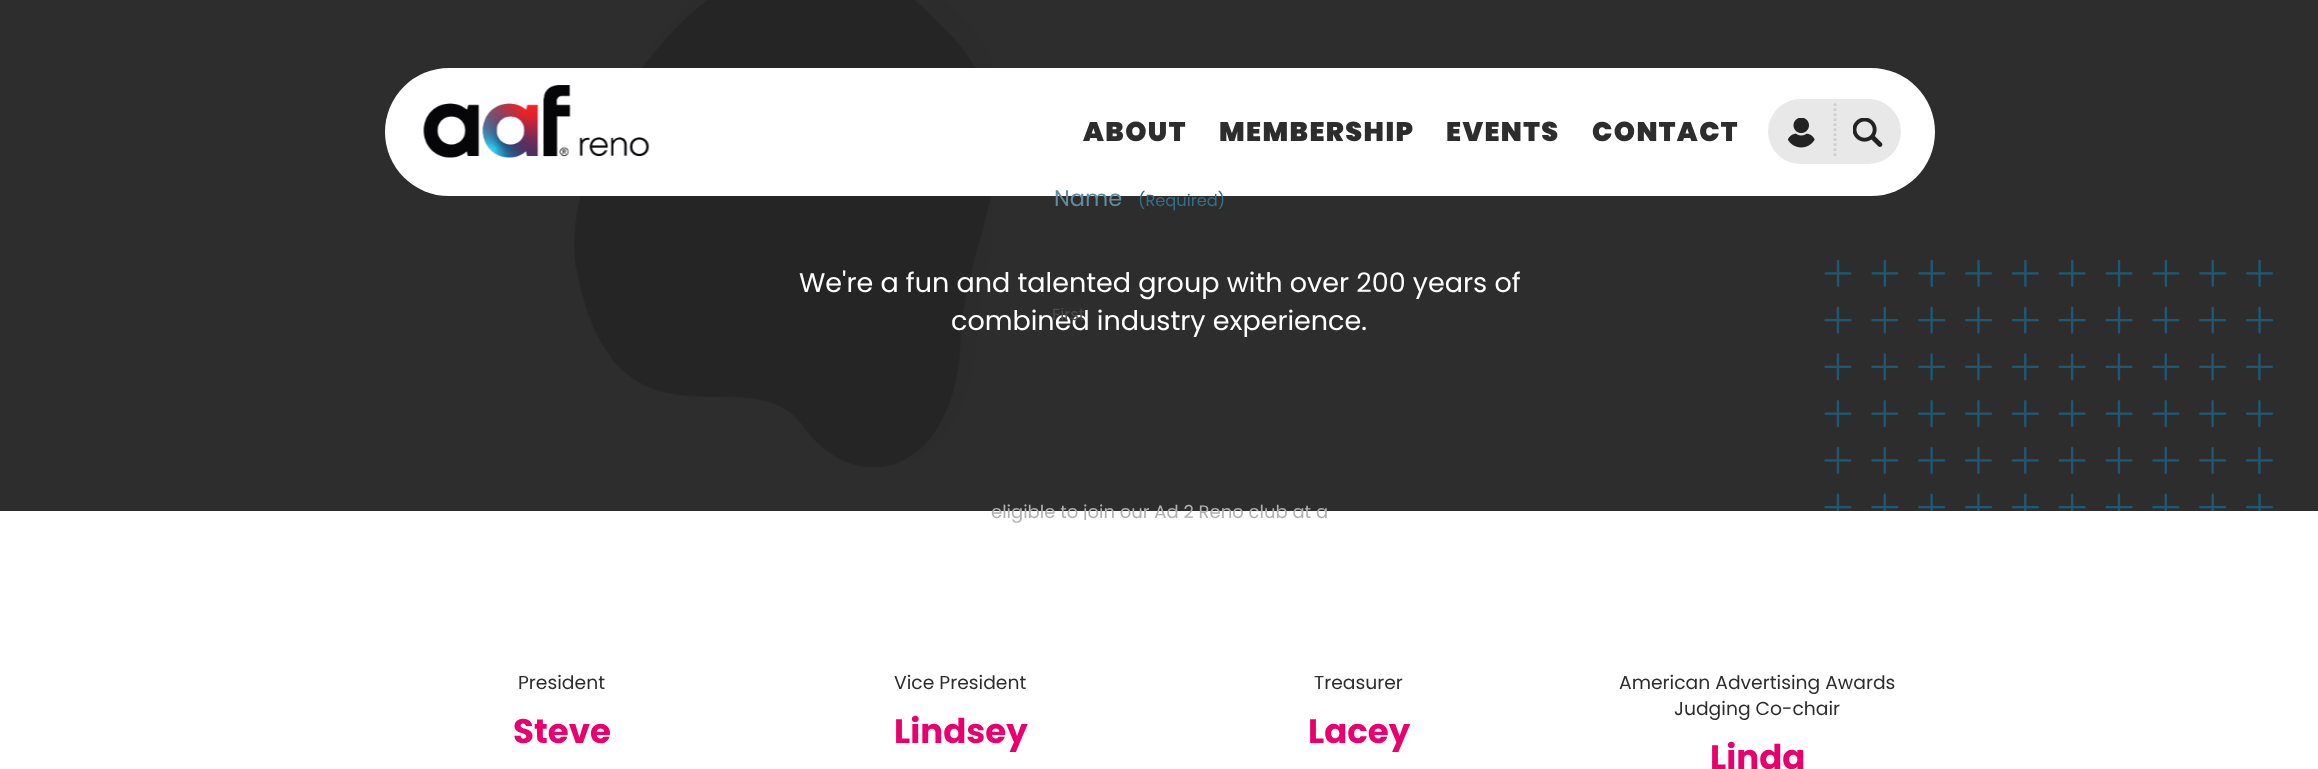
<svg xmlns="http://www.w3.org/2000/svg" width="2318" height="769">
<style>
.a{font:900 27px Poppins;letter-spacing:1.4px;fill:#2d2d2d}
.b{font:22.5px Poppins;fill:#618c9f}
.c{font:16.25px Poppins;fill:#346f88}
.d{font:18px Poppins;fill:#b0b0b0}
.e{font:27px Poppins;fill:#fff}
.f{font:16.25px Poppins;fill:#4c4c4c}
.g{font:18.75px Poppins;fill:#2d2d2d}
.h{font:bold 34px Poppins;fill:#e9006d}
</style>
<defs>
<linearGradient id="g1" gradientUnits="userSpaceOnUse" x1="1160" y1="520" x2="1160" y2="565"><stop offset="0" stop-color="#fff" stop-opacity="0"/><stop offset="1" stop-color="#fff"/></linearGradient>
</defs>
<rect width="100%" height="100%" fill="#fff"/>
<path fill="#2d2d2d" d="M0 0h2318v511H0z"/>
<image href="4.png" x="574" y="0" width="418" height="467"/>
<rect fill="#fff" x="385" y="68" width="1550" height="128" rx="64"/>
<image href="1.png" x="423" y="85" width="227" height="73"/>
<rect fill="#e8e8e8" x="1768" y="99" width="133" height="65" rx="32.5"/>
<path fill="none" stroke="#cfcfcf" stroke-width="2.5" stroke-dasharray="2.5 2.5" d="M1835 103.5v55"/>
<image href="2.png" x="1787" y="118" width="28" height="30"/>
<path fill="none" stroke="#cfcfcf" stroke-width="2.5" stroke-dasharray="2.5 2.5" d="M1835 103.5v55"/>
<image href="3.png" x="1853" y="118" width="30" height="29"/>
<image href="5.png" x="1824" y="259" width="450" height="252"/>
<text class="a" x="1083" y="141">ABOUT</text>
<text class="a" x="1219" y="141">MEMBERSHIP</text>
<text class="a" x="1446" y="141">EVENTS</text>
<text class="a" x="1592" y="141">CONTACT</text>
<text class="b" x="1054" y="206">Name</text>
<text class="c" x="1138" y="206">(Required)</text>
<text class="d" x="991" y="518">eligible to join our Ad 2 Reno club at a</text>
<rect fill="#ffffff80" stroke="#fff" stroke-width="3" x="1032.5" y="521.5" width="275" height="67" rx="18.5"/>
<path fill="url(#g1)" d="M665 520h990v27c0 10-8 18-18 18h-954c-10 0-18-8-18-18z"/>
<text class="e" x="799" y="292">We're a fun and talented group with over 200 years of</text>
<text class="e" x="951" y="330">combined industry experience.</text>
<text class="f" x="1052" y="320">First</text>
<text class="g" x="518" y="689">President</text>
<text class="h" x="513" y="743">Steve</text>
<text class="g" x="894" y="689">Vice President</text>
<text class="h" x="894" y="743">Lindsey</text>
<text class="g" x="1314" y="689">Treasurer</text>
<text class="h" x="1308" y="743">Lacey</text>
<text class="g" x="1619" y="689">American Advertising Awards</text>
<text class="g" x="1674" y="715">Judging Co-chair</text>
<text class="h" x="1710" y="769">Linda</text>
</svg>
